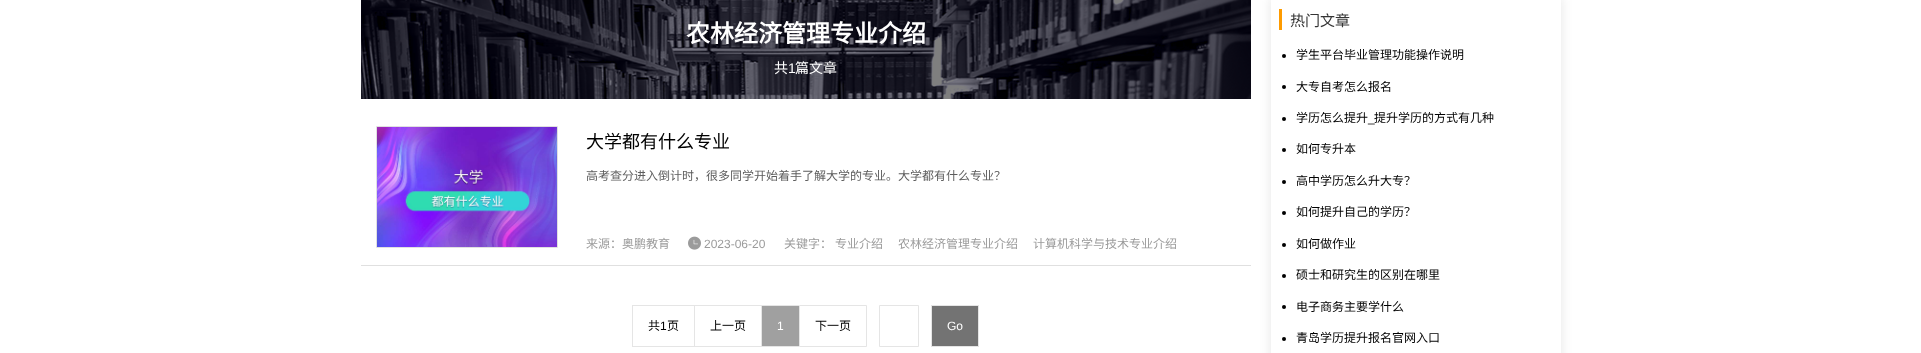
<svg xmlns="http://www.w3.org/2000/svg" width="1921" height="353">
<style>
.a{font:bold 24px Noto Sans CJK SC;fill:#fff}
.b{font:14px Noto Sans CJK SC;fill:#fff}
.c{font:14px Liberation Sans;fill:#fff}
.d{font:18px Noto Sans CJK SC;fill:#000}
.e{font:12px Noto Sans CJK SC;fill:#5d5d5d}
.f{font:12px Noto Sans CJK SC;fill:#9b9b9b}
.g{font:12px Liberation Sans;fill:#9b9b9b}
.h{font:12px Noto Sans CJK SC;fill:#000}
.i{font:12px Liberation Sans;fill:#000}
.j{font:12px Liberation Sans;fill:#fff}
.k{font:15px Noto Sans CJK SC;fill:#353535}
</style>
<defs>
<clipPath id="clip1"><path d="M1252 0h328v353h-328zm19-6h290v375h-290z" clip-rule="evenodd"/></clipPath>
</defs>
<rect width="100%" height="100%" fill="#fff"/>
<image href="1.png" x="361" y="0" width="890" height="99"/>
<path fill="#e0e0e0" d="M361 265h890v1H361z"/>
<path fill="none" stroke="#e0e0e0" d="M376.5 126.5h181v121H376.5z"/>
<image href="2.png" x="377" y="127" width="180" height="120"/>
<image href="3.png" x="688" y="236" width="13" height="14"/>
<path fill="#e5e5e5" d="M632 305h167v1H632z"/>
<path fill="#e5e5e5" d="M632 346h167v1H632z"/>
<path fill="#e5e5e5" d="M632 305h1v42H632z"/>
<path fill="#e5e5e5" d="M694 305h1v42H694z"/>
<path fill="#a0a0a0" d="M762 306h37v40H762z"/>
<path fill="#e5e5e5" d="M761 305h1v42H761z"/>
<path fill="none" stroke="#e5e5e5" d="M799.5 305.5h67v41H799.5z"/>
<path fill="none" stroke="#e5e5e5" d="M879.5 305.5h39v41H879.5z"/>
<path fill="#737373" stroke="#e5e5e5" d="M931.5 305.5h47v41H931.5z"/>
<g clip-path="url(#clip1)">
<path fill="#0000001a" filter="blur(6px)" d="M1271 -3h290v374H1271z"/>
</g>
<path fill="#fe9b00" d="M1279 9h3v21H1279z"/>
<circle fill="#000" cx="1284" cy="56" r="2"/>
<circle fill="#000" cx="1284" cy="87" r="2"/>
<circle fill="#000" cx="1284" cy="119" r="2"/>
<circle fill="#000" cx="1284" cy="150" r="2"/>
<circle fill="#000" cx="1284" cy="182" r="2"/>
<circle fill="#000" cx="1284" cy="213" r="2"/>
<circle fill="#000" cx="1284" cy="245" r="2"/>
<circle fill="#000" cx="1284" cy="276" r="2"/>
<circle fill="#000" cx="1284" cy="307" r="2"/>
<circle fill="#000" cx="1284" cy="339" r="2"/>
<text class="a" x="686" y="42">农林经济管理专业介绍</text>
<text class="b" x="774" y="73">共</text>
<text class="c" x="788" y="73">1</text>
<text class="b" x="795" y="73">篇文章</text>
<text class="d" x="586" y="148">大学都有什么专业</text>
<text class="e" x="586" y="180">高考查分进入倒计时，很多同学开始着手了解大学的专业。大学都有什么专业？</text>
<text class="f" x="586" y="248">来源：奥鹏教育</text>
<text class="g" x="704" y="248">2023-06-20</text>
<text class="f" x="784" y="248">关键字：</text>
<text class="f" x="835" y="248">专业介绍</text>
<text class="f" x="898" y="248">农林经济管理专业介绍</text>
<text class="f" x="1033" y="248">计算机科学与技术专业介绍</text>
<text class="h" x="648" y="330">共</text>
<text class="i" x="660" y="330">1</text>
<text class="h" x="667" y="330">页</text>
<text class="h" x="710" y="330">上一页</text>
<text class="j" x="777" y="330">1</text>
<text class="h" x="815" y="330">下一页</text>
<text class="j" x="947" y="330">Go</text>
<text class="k" x="1290" y="26">热门文章</text>
<text class="h" x="1296" y="59">学生平台毕业管理功能操作说明</text>
<text class="h" x="1296" y="91">大专自考怎么报名</text>
<text class="h" x="1296" y="122">学历怎么提升</text>
<text class="h" x="1374" y="122">提升学历的方式有几种</text>
<text class="i" x="1368" y="122">_</text>
<text class="h" x="1296" y="153">如何专升本</text>
<text class="h" x="1296" y="185">高中学历怎么升大专？</text>
<text class="h" x="1296" y="216">如何提升自己的学历？</text>
<text class="h" x="1296" y="248">如何做作业</text>
<text class="h" x="1296" y="279">硕士和研究生的区别在哪里</text>
<text class="h" x="1296" y="311">电子商务主要学什么</text>
<text class="h" x="1296" y="342">青岛学历提升报名官网入口</text>
</svg>
